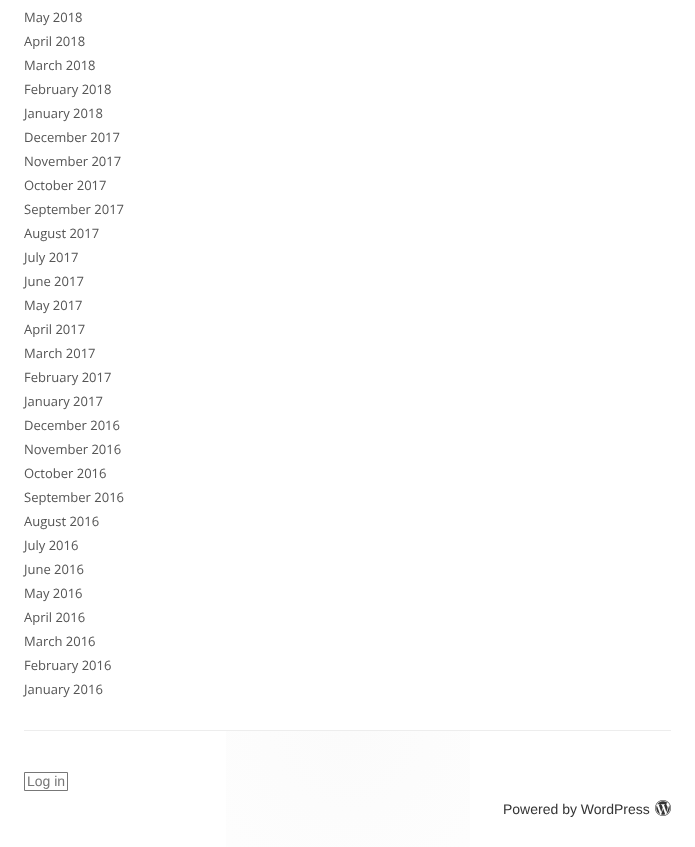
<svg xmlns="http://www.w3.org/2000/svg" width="695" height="847">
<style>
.a{font:13px Open Sans;fill:#555}
.b{font:14px Liberation Sans;fill:#777}
.c{font:14px Liberation Sans;fill:#333}
</style>
<defs>
<radialGradient id="g1" gradientUnits="userSpaceOnUse" cx="348" cy="731" r="324"><stop offset="0" stop-color="#fbfbfb"/><stop offset="1" stop-color="#fff"/></radialGradient>
</defs>
<rect width="100%" height="100%" fill="#fff"/>
<path fill="url(#g1)" d="M226 731h244v116H226z"/>
<path fill="#ededed" d="M24 730h647v1H24z"/>
<path fill="none" stroke="#777" d="M24.5 772.5h43v18H24.5z"/>
<image href="1.png" x="655" y="800" width="16" height="16"/>
<text class="a" x="24" y="22">May 2018</text>
<text class="a" x="24" y="46">April 2018</text>
<text class="a" x="24" y="70">March 2018</text>
<text class="a" x="24" y="94">February 2018</text>
<text class="a" x="24" y="118">January 2018</text>
<text class="a" x="24" y="142">December 2017</text>
<text class="a" x="24" y="166">November 2017</text>
<text class="a" x="24" y="190">October 2017</text>
<text class="a" x="24" y="214">September 2017</text>
<text class="a" x="24" y="238">August 2017</text>
<text class="a" x="24" y="262">July 2017</text>
<text class="a" x="24" y="286">June 2017</text>
<text class="a" x="24" y="310">May 2017</text>
<text class="a" x="24" y="334">April 2017</text>
<text class="a" x="24" y="358">March 2017</text>
<text class="a" x="24" y="382">February 2017</text>
<text class="a" x="24" y="406">January 2017</text>
<text class="a" x="24" y="430">December 2016</text>
<text class="a" x="24" y="454">November 2016</text>
<text class="a" x="24" y="478">October 2016</text>
<text class="a" x="24" y="502">September 2016</text>
<text class="a" x="24" y="526">August 2016</text>
<text class="a" x="24" y="550">July 2016</text>
<text class="a" x="24" y="574">June 2016</text>
<text class="a" x="24" y="598">May 2016</text>
<text class="a" x="24" y="622">April 2016</text>
<text class="a" x="24" y="646">March 2016</text>
<text class="a" x="24" y="670">February 2016</text>
<text class="a" x="24" y="694">January 2016</text>
<text class="b" x="27" y="786">Log in</text>
<text class="c" x="503" y="814">Powered by WordPress</text>
</svg>
